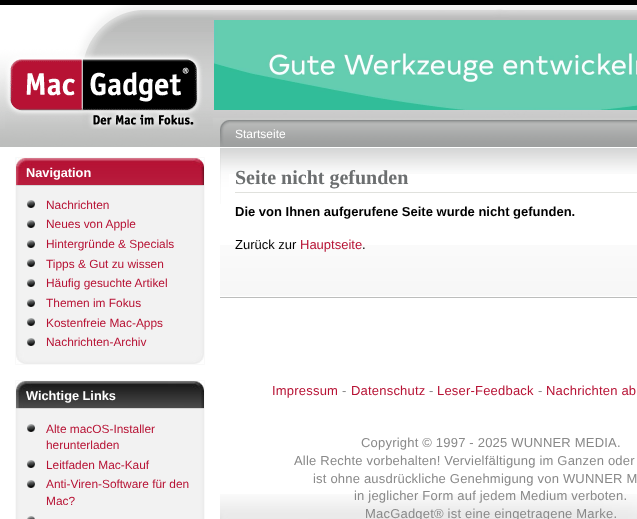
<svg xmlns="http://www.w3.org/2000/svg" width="637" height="519">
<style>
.a{font:bold 12.75px Liberation Sans;fill:#fff}
.b{font:11.9px Liberation Sans;fill:#b71234}
.c{font:12px Liberation Sans;fill:#fff}
.d{font:bold 20px Liberation Serif;fill:#6c6f70}
.e{font:bold 13px Liberation Sans;fill:#000}
.f{font:13px Liberation Sans;fill:#000}
.g{font:13px Liberation Sans;fill:#b71234}
.h{font:13px Liberation Sans;letter-spacing:0.2px;fill:#b71234}
.i{font:13px Liberation Sans;letter-spacing:0.2px;fill:#898989}
</style>
<rect width="100%" height="100%" fill="#fff"/>
<image href="1.png" x="0" y="0" width="637" height="147"/>
<image href="2.png" x="213" y="5" width="424" height="113"/>
<image href="3.png" x="0" y="5" width="213" height="124"/>
<image href="4.png" x="214" y="20" width="423" height="90"/>
<image href="5.png" x="16" y="186" width="188" height="178"/>
<path fill="none" stroke="#f9f9f9" d="M15.5 157.5h189v207H15.5z"/>
<image href="6.png" x="16" y="158" width="188" height="27"/>
<path fill="#d6d6d6" d="M16 185h188v1H16z"/>
<image href="7.png" x="27" y="200" width="8" height="8"/>
<image href="7.png" x="27" y="220" width="8" height="8"/>
<image href="7.png" x="27" y="240" width="8" height="8"/>
<image href="7.png" x="27" y="259" width="8" height="8"/>
<image href="7.png" x="27" y="279" width="8" height="8"/>
<image href="7.png" x="27" y="299" width="8" height="8"/>
<image href="7.png" x="27" y="318" width="8" height="8"/>
<image href="7.png" x="27" y="338" width="8" height="8"/>
<image href="8.png" x="16" y="409" width="188" height="110"/>
<path fill="none" stroke="#f9f9f9" d="M15.5 380.5h189v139H15.5z"/>
<image href="9.png" x="16" y="381" width="188" height="27"/>
<path fill="#d6d6d6" d="M16 408h188v1H16z"/>
<image href="7.png" x="27" y="424" width="8" height="8"/>
<image href="7.png" x="27" y="460" width="8" height="8"/>
<image href="7.png" x="27" y="480" width="8" height="8"/>
<image href="10.png" x="27" y="516" width="8" height="3"/>
<image href="11.png" x="229" y="120" width="408" height="54"/>
<image href="12.png" x="220" y="120" width="9" height="84"/>
<path fill="#e0e1dd" d="M235 192h402v1H235z"/>
<image href="13.png" x="220" y="245" width="417" height="51"/>
<path fill="#bcbdbc" d="M220 297h417v1H220z"/>
<image href="14.png" x="220" y="494" width="417" height="25"/>
<text class="a" x="26" y="177">Navigation</text>
<text class="b" x="46" y="209">Nachrichten</text>
<text class="b" x="46" y="228">Neues von Apple</text>
<text class="b" x="46" y="248">Hintergründe &amp; Specials</text>
<text class="b" x="46" y="268">Tipps &amp; Gut zu wissen</text>
<text class="b" x="46" y="287">Häufig gesuchte Artikel</text>
<text class="b" x="46" y="307">Themen im Fokus</text>
<text class="b" x="46" y="327">Kostenfreie Mac-Apps</text>
<text class="b" x="46" y="346">Nachrichten-Archiv</text>
<text class="a" x="26" y="400">Wichtige Links</text>
<text class="b" x="46" y="433">Alte macOS-Installer</text>
<text class="b" x="46" y="449">herunterladen</text>
<text class="b" x="46" y="469">Leitfaden Mac-Kauf</text>
<text class="b" x="46" y="488">Anti-Viren-Software für den</text>
<text class="b" x="46" y="505">Mac?</text>
<text class="c" x="235" y="138">Startseite</text>
<text class="d" x="235" y="184">Seite nicht gefunden</text>
<text class="e" x="235" y="216">Die von Ihnen aufgerufene Seite wurde nicht gefunden.</text>
<text class="f" x="235" y="249">Zurück zur</text>
<text class="g" x="300" y="249">Hauptseite</text>
<text class="f" x="362" y="249">.</text>
<text class="h" x="272" y="395">Impressum</text>
<text class="i" x="342" y="395">-</text>
<text class="h" x="351" y="395">Datenschutz</text>
<text class="i" x="429" y="395">-</text>
<text class="h" x="437" y="395">Leser-Feedback</text>
<text class="i" x="538" y="395">-</text>
<text class="h" x="546" y="395">Nachrichten ab</text>
<text class="i" x="361" y="447">Copyright © 1997 - 2025 WUNNER MEDIA.</text>
<text class="i" x="294" y="465">Alle Rechte vorbehalten! Vervielfältigung im Ganzen oder</text>
<text class="i" x="313" y="483">ist ohne ausdrückliche Genehmigung von WUNNER M</text>
<text class="i" x="354" y="500">in jeglicher Form auf jedem Medium verboten.</text>
<text class="i" x="365" y="518">MacGadget® ist eine eingetragene Marke.</text>
</svg>
